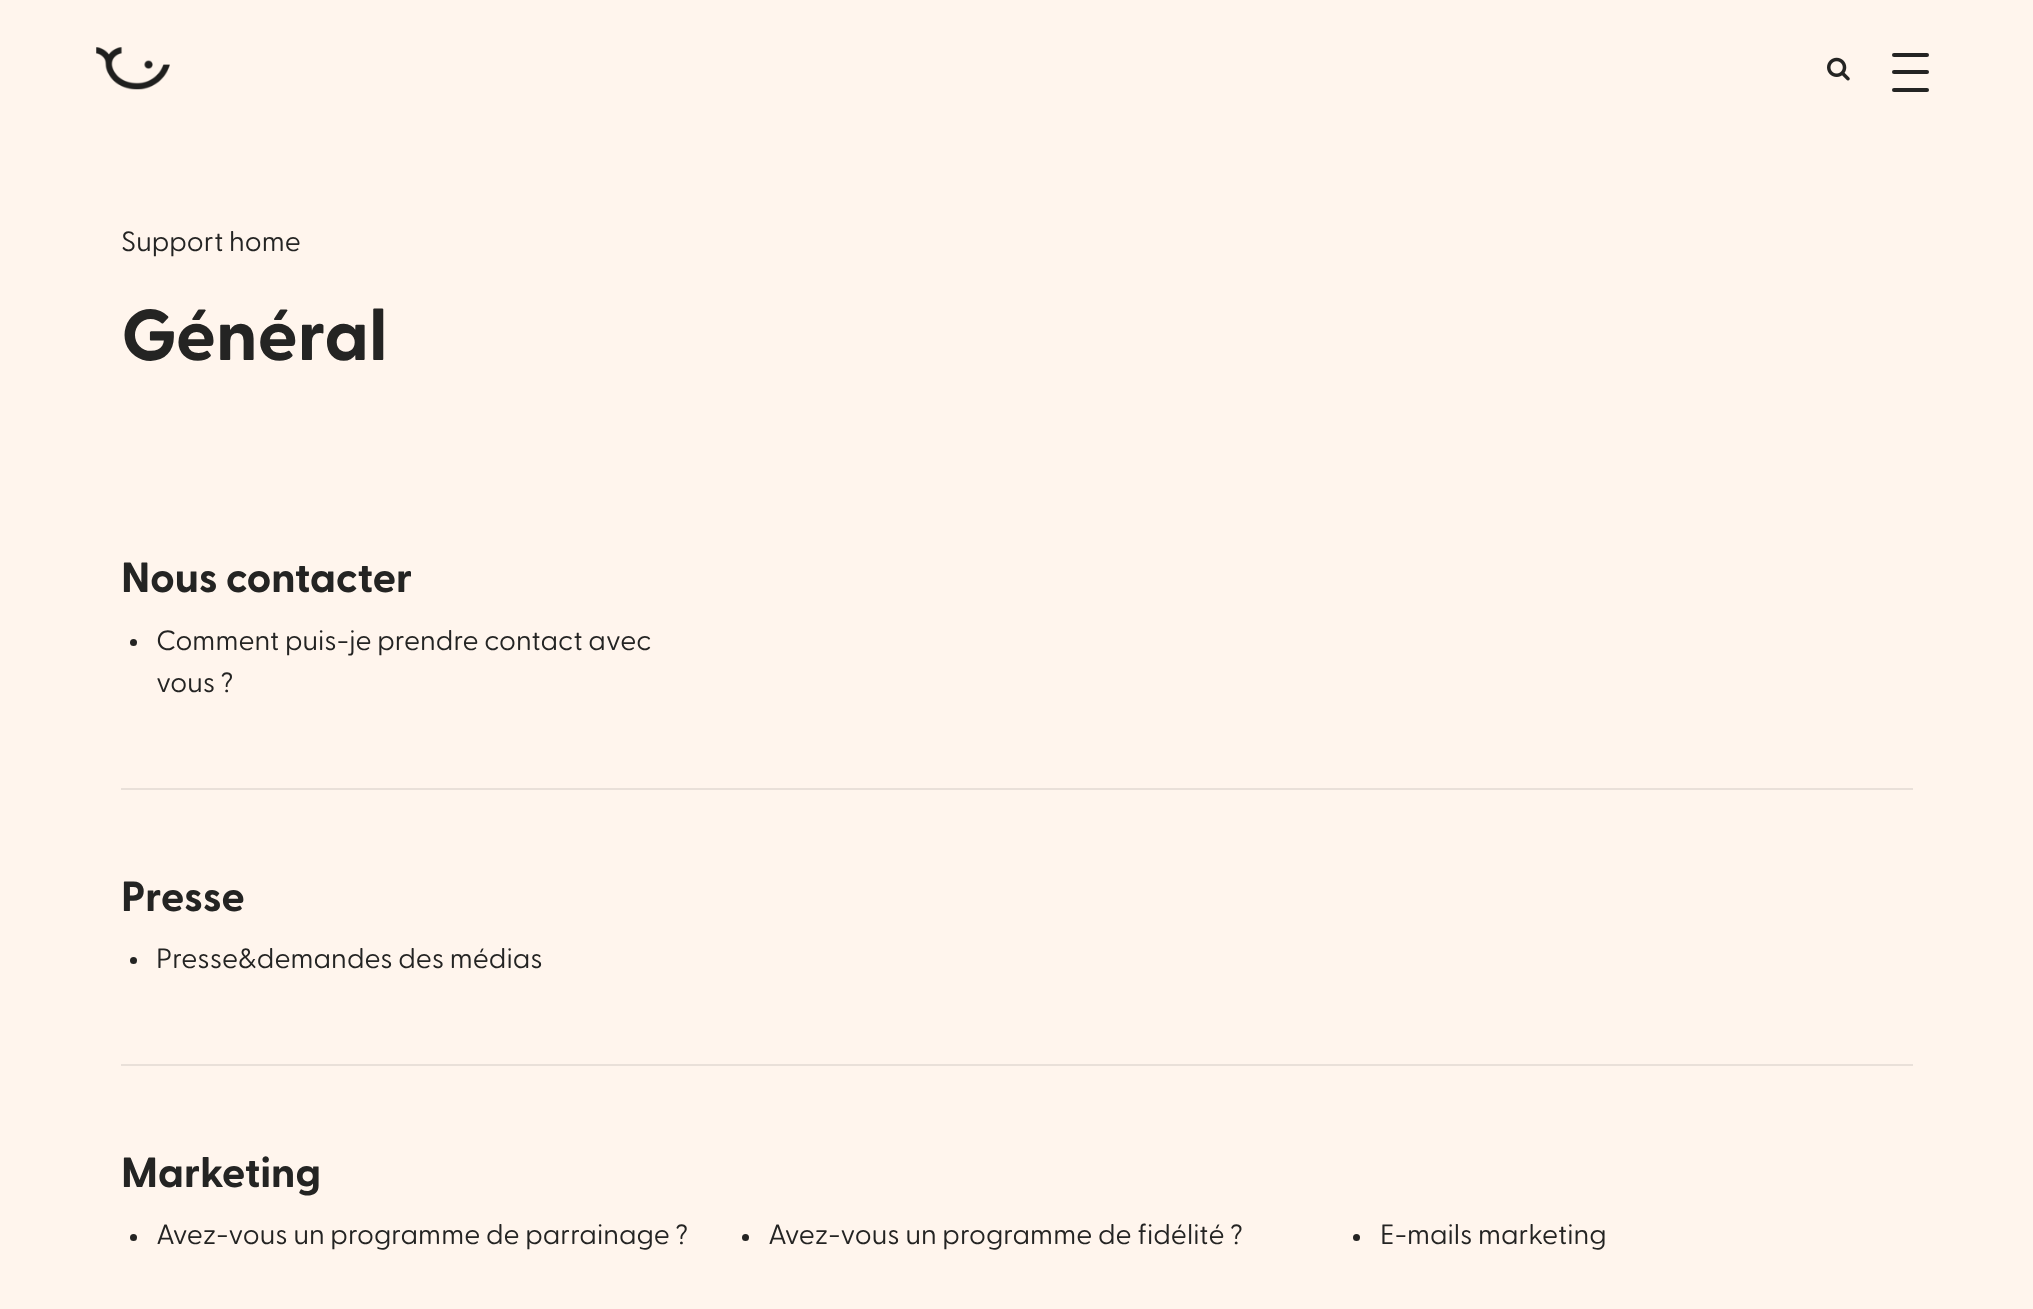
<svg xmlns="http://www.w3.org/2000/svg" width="2033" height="1309">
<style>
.a{font:28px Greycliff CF;fill:#242423}
.b{font:bold 72px Greycliff CF;fill:#242423}
.c{font:bold 42px Greycliff CF;fill:#242423}
</style>
<rect width="100%" height="100%" fill="#fff5ed"/>
<image href="1.png" x="96" y="47" width="74" height="43"/>
<image href="2.png" x="1827" y="57" width="23" height="24"/>
<rect fill="#242423" x="1892" y="70" width="37" height="4" rx="2"/>
<rect fill="#242423" x="1892" y="53" width="37" height="4" rx="2"/>
<rect fill="#242423" x="1892" y="88" width="37" height="4" rx="2"/>
<circle fill="#242423" cx="133.5" cy="642.5" r="3.5"/>
<path fill="#e9e0d9" d="M121 788h1792v2H121z"/>
<circle fill="#242423" cx="133.5" cy="960.5" r="3.5"/>
<path fill="#e9e0d9" d="M121 1064h1792v2H121z"/>
<circle fill="#242423" cx="133.5" cy="1237.5" r="3.5"/>
<circle fill="#242423" cx="745.5" cy="1237.5" r="3.5"/>
<circle fill="#242423" cx="1356.5" cy="1237.5" r="3.5"/>
<text class="a" x="121" y="251">Support home</text>
<text class="b" x="121" y="360">Général</text>
<text class="c" x="121" y="592">Nous contacter</text>
<text class="a" x="156" y="650">Comment puis-je prendre contact avec</text>
<text class="a" x="156" y="692">vous ?</text>
<text class="c" x="121" y="911">Presse</text>
<text class="a" x="156" y="968">Presse&amp;demandes des médias</text>
<text class="c" x="121" y="1187">Marketing</text>
<text class="a" x="156" y="1244">Avez-vous un programme de parrainage ?</text>
<text class="a" x="768" y="1244">Avez-vous un programme de fidélité ?</text>
<text class="a" x="1380" y="1244">E-mails marketing</text>
</svg>
